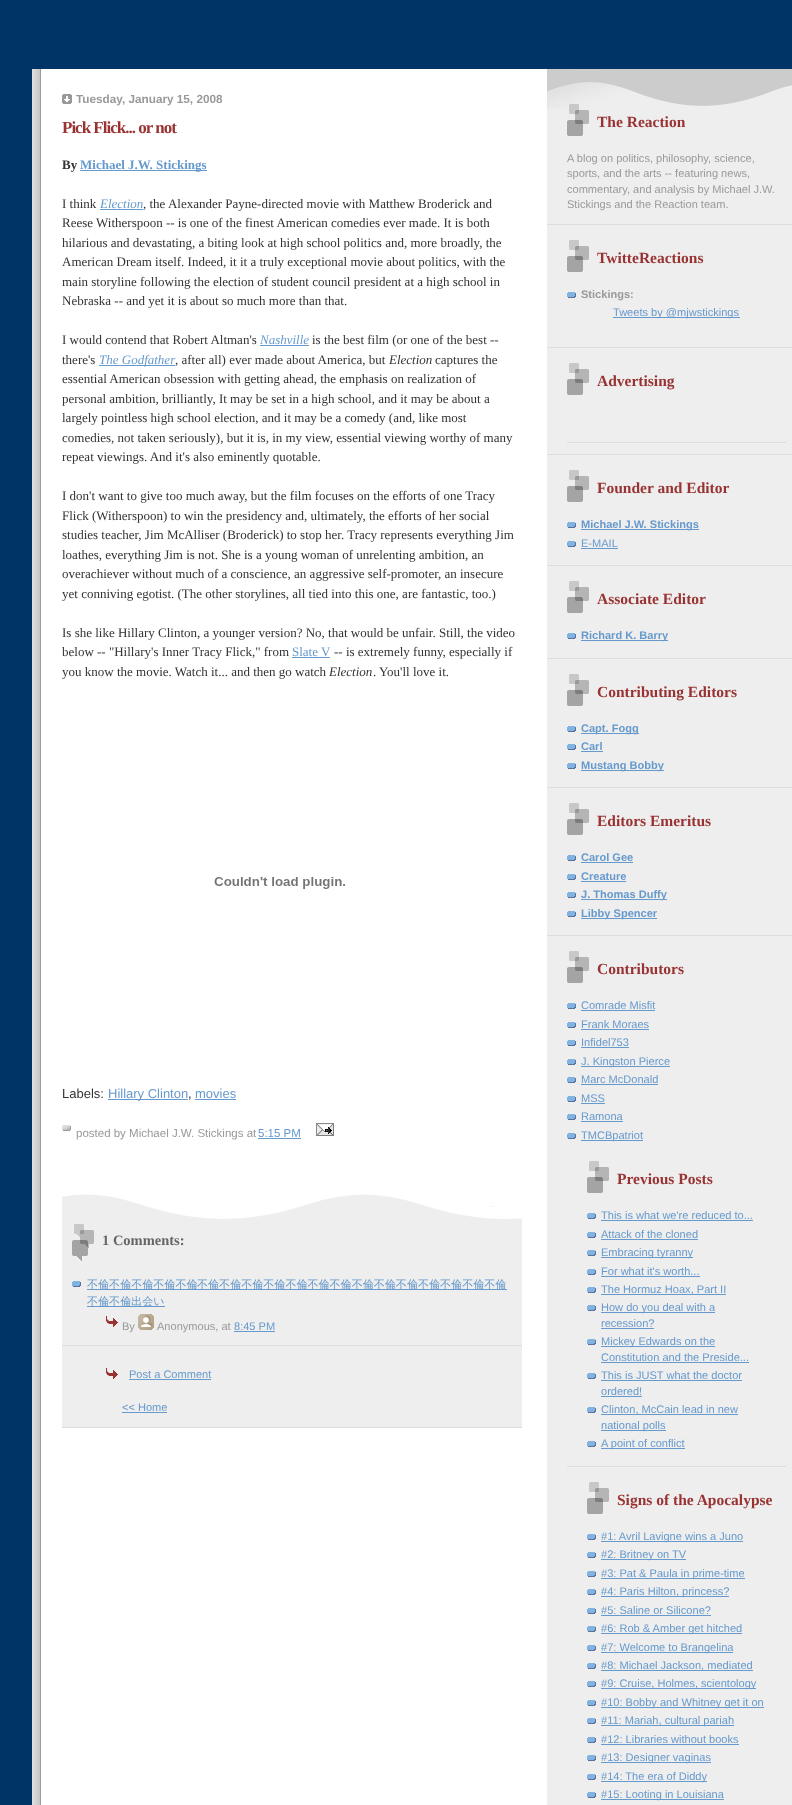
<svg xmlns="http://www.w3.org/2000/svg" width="792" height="1805">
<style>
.a{font:bold 11.75px Liberation Sans;fill:#999}
.b{font:bold 17px Liberation Serif;letter-spacing:-1px;fill:#933}
.c{font:bold 13px Liberation Serif;fill:#333}
.d{font:bold 13px Liberation Serif;fill:#69c}
.e{font:13px Liberation Serif;fill:#333}
.f{font:italic 13px Liberation Serif;fill:#69c}
.g{font:italic 13px Liberation Serif;fill:#333}
.h{font:13px Liberation Serif;fill:#69c}
.i{font:13px Liberation Sans;fill:#333}
.j{font:13px Liberation Sans;fill:#69c}
.k{font:11.5px Liberation Sans;fill:#999}
.l{font:11.5px Liberation Sans;fill:#69c}
.m{font:bold 14.5px Liberation Serif;fill:#666}
.n{font:500 11.05px WenQuanYi Zen Hei;fill:#69c}
.o{font:11.05px Liberation Sans;fill:#999}
.p{font:11.05px Liberation Sans;fill:#69c}
.q{font:bold 15.5px Liberation Serif;fill:#933}
.r{font:bold 11.05px Liberation Sans;fill:#999}
.s{font:bold 11.05px Liberation Sans;fill:#69c}
</style>
<rect width="100%" height="100%" fill="#036"/>
<image href="1.png" x="32" y="69" width="760" height="1736"/>
<image href="2.png" x="62" y="94" width="10" height="10"/>
<path fill="#69c" d="M80 170h127v1H80z"/>
<path fill="#69c" d="M100 209h43v1H100z"/>
<path fill="#69c" d="M260 345h49v1H260z"/>
<path fill="#69c" d="M99 365h76v1H99z"/>
<path fill="#69c" d="M292 657h38v1H292z"/>
<image href="3.png" x="214" y="877" width="131" height="12"/>
<path fill="#69c" d="M108 1099h80v1H108z"/>
<path fill="#69c" d="M195 1099h41v1H195z"/>
<image href="4.png" x="62" y="1125" width="9" height="6"/>
<path fill="#69c" d="M258 1138h43v1H258z"/>
<image href="5.png" x="316" y="1123" width="18" height="13"/>
<path fill="#eee" d="M62 1195h460v232H62z"/>
<image href="6.png" x="62" y="1194" width="460" height="25"/>
<image href="7.png" x="72" y="1224" width="22" height="37"/>
<image href="8.png" x="72" y="1281" width="9" height="6"/>
<path fill="#69c" d="M87 1289h110v1H87z"/>
<path fill="#69c" d="M197 1289h310v1H197z"/>
<path fill="#69c" d="M87 1306h78v1H87z"/>
<image href="9.png" x="106" y="1316" width="12" height="11"/>
<path fill="#ddd" d="M62 1345h460v1H62z"/>
<image href="10.png" x="138" y="1314" width="16" height="16"/>
<path fill="#69c" d="M234 1331h41v1H234z"/>
<image href="9.png" x="106" y="1368" width="12" height="11"/>
<path fill="#ddd" d="M62 1427h460v1H62z"/>
<path fill="#69c" d="M129 1379h82v1H129z"/>
<path fill="#69c" d="M122 1412h45v1H122z"/>
<image href="11.png" x="547" y="69" width="245" height="40"/>
<image href="12.png" x="567" y="104" width="22" height="32"/>
<path fill="#ddd" d="M547 224h245v1H547z"/>
<image href="13.png" x="567" y="240" width="22" height="32"/>
<path fill="#ddd" d="M547 347h245v1H547z"/>
<image href="8.png" x="567" y="292" width="9" height="6"/>
<path fill="#69c" d="M613 317h127v1H613z"/>
<image href="13.png" x="567" y="363" width="22" height="32"/>
<path fill="#ddd" d="M547 454h245v1H547z"/>
<path fill="#ddd" d="M567 442h219v1H567z"/>
<image href="13.png" x="567" y="470" width="22" height="32"/>
<path fill="#ddd" d="M547 565h245v1H547z"/>
<image href="8.png" x="567" y="522" width="9" height="6"/>
<path fill="#69c" d="M581 529h118v1H581z"/>
<image href="8.png" x="567" y="541" width="9" height="6"/>
<path fill="#69c" d="M581 548h37v1H581z"/>
<image href="13.png" x="567" y="581" width="22" height="32"/>
<path fill="#ddd" d="M547 658h245v1H547z"/>
<image href="8.png" x="567" y="633" width="9" height="6"/>
<path fill="#69c" d="M581 640h87v1H581z"/>
<image href="13.png" x="567" y="674" width="22" height="32"/>
<path fill="#ddd" d="M547 787h245v1H547z"/>
<image href="8.png" x="567" y="726" width="9" height="6"/>
<path fill="#69c" d="M581 733h58v1H581z"/>
<image href="8.png" x="567" y="744" width="9" height="6"/>
<path fill="#69c" d="M581 751h22v1H581z"/>
<image href="8.png" x="567" y="763" width="9" height="6"/>
<path fill="#69c" d="M581 770h83v1H581z"/>
<image href="13.png" x="567" y="803" width="22" height="32"/>
<path fill="#ddd" d="M547 935h245v1H547z"/>
<image href="8.png" x="567" y="855" width="9" height="6"/>
<path fill="#69c" d="M581 862h52v1H581z"/>
<image href="8.png" x="567" y="874" width="9" height="6"/>
<path fill="#69c" d="M581 881h45v1H581z"/>
<image href="8.png" x="567" y="892" width="9" height="6"/>
<path fill="#69c" d="M581 899h86v1H581z"/>
<image href="8.png" x="567" y="911" width="9" height="6"/>
<path fill="#69c" d="M581 918h76v1H581z"/>
<image href="13.png" x="567" y="951" width="22" height="32"/>
<image href="8.png" x="567" y="1003" width="9" height="6"/>
<path fill="#69c" d="M581 1010h74v1H581z"/>
<image href="8.png" x="567" y="1022" width="9" height="6"/>
<path fill="#69c" d="M581 1029h68v1H581z"/>
<image href="8.png" x="567" y="1040" width="9" height="6"/>
<path fill="#69c" d="M581 1047h48v1H581z"/>
<image href="8.png" x="567" y="1059" width="9" height="6"/>
<path fill="#69c" d="M581 1066h89v1H581z"/>
<image href="8.png" x="567" y="1077" width="9" height="6"/>
<path fill="#69c" d="M581 1084h77v1H581z"/>
<image href="8.png" x="567" y="1096" width="9" height="6"/>
<path fill="#69c" d="M581 1103h24v1H581z"/>
<image href="8.png" x="567" y="1114" width="9" height="6"/>
<path fill="#69c" d="M581 1121h42v1H581z"/>
<image href="8.png" x="567" y="1133" width="9" height="6"/>
<path fill="#69c" d="M581 1140h62v1H581z"/>
<image href="13.png" x="587" y="1161" width="22" height="32"/>
<path fill="#ddd" d="M567 1466h219v1H567z"/>
<image href="8.png" x="587" y="1213" width="9" height="6"/>
<path fill="#69c" d="M601 1220h152v1H601z"/>
<image href="8.png" x="587" y="1232" width="9" height="6"/>
<path fill="#69c" d="M601 1239h97v1H601z"/>
<image href="8.png" x="587" y="1250" width="9" height="6"/>
<path fill="#69c" d="M601 1257h92v1H601z"/>
<image href="8.png" x="587" y="1269" width="9" height="6"/>
<path fill="#69c" d="M601 1276h99v1H601z"/>
<image href="8.png" x="587" y="1287" width="9" height="6"/>
<path fill="#69c" d="M601 1294h125v1H601z"/>
<image href="8.png" x="587" y="1305" width="9" height="6"/>
<path fill="#69c" d="M601 1312h114v1H601z"/>
<path fill="#69c" d="M601 1328h53v1H601z"/>
<image href="8.png" x="587" y="1339" width="9" height="6"/>
<path fill="#69c" d="M601 1346h114v1H601z"/>
<path fill="#69c" d="M601 1362h148v1H601z"/>
<image href="8.png" x="587" y="1373" width="9" height="6"/>
<path fill="#69c" d="M601 1380h141v1H601z"/>
<path fill="#69c" d="M601 1396h41v1H601z"/>
<image href="8.png" x="587" y="1407" width="9" height="6"/>
<path fill="#69c" d="M601 1414h137v1H601z"/>
<path fill="#69c" d="M601 1430h65v1H601z"/>
<image href="8.png" x="587" y="1441" width="9" height="6"/>
<path fill="#69c" d="M601 1448h84v1H601z"/>
<image href="13.png" x="587" y="1482" width="22" height="32"/>
<image href="8.png" x="587" y="1534" width="9" height="6"/>
<path fill="#69c" d="M601 1541h142v1H601z"/>
<image href="8.png" x="587" y="1552" width="9" height="6"/>
<path fill="#69c" d="M601 1559h85v1H601z"/>
<image href="8.png" x="587" y="1571" width="9" height="6"/>
<path fill="#69c" d="M601 1578h144v1H601z"/>
<image href="8.png" x="587" y="1589" width="9" height="6"/>
<path fill="#69c" d="M601 1596h128v1H601z"/>
<image href="8.png" x="587" y="1608" width="9" height="6"/>
<path fill="#69c" d="M601 1615h110v1H601z"/>
<image href="8.png" x="587" y="1626" width="9" height="6"/>
<path fill="#69c" d="M601 1633h141v1H601z"/>
<image href="8.png" x="587" y="1645" width="9" height="6"/>
<path fill="#69c" d="M601 1652h132v1H601z"/>
<image href="8.png" x="587" y="1663" width="9" height="6"/>
<path fill="#69c" d="M601 1670h152v1H601z"/>
<image href="8.png" x="587" y="1681" width="9" height="6"/>
<path fill="#69c" d="M601 1688h155v1H601z"/>
<image href="8.png" x="587" y="1700" width="9" height="6"/>
<path fill="#69c" d="M601 1707h163v1H601z"/>
<image href="8.png" x="587" y="1718" width="9" height="6"/>
<path fill="#69c" d="M601 1725h133v1H601z"/>
<image href="8.png" x="587" y="1737" width="9" height="6"/>
<path fill="#69c" d="M601 1744h138v1H601z"/>
<image href="8.png" x="587" y="1755" width="9" height="6"/>
<path fill="#69c" d="M601 1762h110v1H601z"/>
<image href="8.png" x="587" y="1774" width="9" height="6"/>
<path fill="#69c" d="M601 1781h106v1H601z"/>
<image href="8.png" x="587" y="1792" width="9" height="6"/>
<path fill="#69c" d="M601 1799h123v1H601z"/>
<text class="a" x="76" y="103">Tuesday, January 15, 2008</text>
<text class="b" x="62" y="133">Pick Flick... or not</text>
<text class="c" x="62" y="169">By</text>
<text class="d" x="80" y="169">Michael J.W. Stickings</text>
<text class="e" x="62" y="208">I think</text>
<text class="f" x="100" y="208">Election</text>
<text class="e" x="143" y="208">, the Alexander Payne-directed movie with Matthew Broderick and</text>
<text class="e" x="62" y="227">Reese Witherspoon -- is one of the finest American comedies ever made. It is both</text>
<text class="e" x="62" y="247">hilarious and devastating, a biting look at high school politics and, more broadly, the</text>
<text class="e" x="62" y="266">American Dream itself. Indeed, it it a truly exceptional movie about politics, with the</text>
<text class="e" x="62" y="286">main storyline following the election of student council president at a high school in</text>
<text class="e" x="62" y="305">Nebraska -- and yet it is about so much more than that.</text>
<text class="e" x="62" y="344">I would contend that Robert Altman's</text>
<text class="f" x="260" y="344">Nashville</text>
<text class="e" x="312" y="344">is the best film (or one of the best --</text>
<text class="e" x="62" y="364">there's</text>
<text class="f" x="99" y="364">The Godfather</text>
<text class="e" x="175" y="364">, after all) ever made about America, but</text>
<text class="g" x="389" y="364">Election</text>
<text class="e" x="435" y="364">captures the</text>
<text class="e" x="62" y="383">essential American obsession with getting ahead, the emphasis on realization of</text>
<text class="e" x="62" y="403">personal ambition, brilliantly, It may be set in a high school, and it may be about a</text>
<text class="e" x="62" y="422">largely pointless high school election, and it may be a comedy (and, like most</text>
<text class="e" x="62" y="442">comedies, not taken seriously), but it is, in my view, essential viewing worthy of many</text>
<text class="e" x="62" y="461">repeat viewings. And it's also eminently quotable.</text>
<text class="e" x="62" y="500">I don't want to give too much away, but the film focuses on the efforts of one Tracy</text>
<text class="e" x="62" y="520">Flick (Witherspoon) to win the presidency and, ultimately, the efforts of her social</text>
<text class="e" x="62" y="539">studies teacher, Jim McAlliser (Broderick) to stop her. Tracy represents everything Jim</text>
<text class="e" x="62" y="559">loathes, everything Jim is not. She is a young woman of unrelenting ambition, an</text>
<text class="e" x="62" y="578">overachiever without much of a conscience, an aggressive self-promoter, an insecure</text>
<text class="e" x="62" y="598">yet conniving egotist. (The other storylines, all tied into this one, are fantastic, too.)</text>
<text class="e" x="62" y="637">Is she like Hillary Clinton, a younger version? No, that would be unfair. Still, the video</text>
<text class="e" x="62" y="656">below -- "Hillary's Inner Tracy Flick," from</text>
<text class="h" x="292" y="656">Slate V</text>
<text class="e" x="334" y="656">-- is extremely funny, especially if</text>
<text class="e" x="62" y="676">you know the movie. Watch it... and then go watch</text>
<text class="g" x="329" y="676">Election</text>
<text class="e" x="373" y="676">. You'll love it.</text>
<text class="i" x="62" y="1098">Labels:</text>
<text class="j" x="108" y="1098">Hillary Clinton</text>
<text class="i" x="188" y="1098">,</text>
<text class="j" x="195" y="1098">movies</text>
<text class="k" x="76" y="1137">posted by Michael J.W. Stickings at</text>
<text class="l" x="258" y="1137">5:15 PM</text>
<text class="m" x="102" y="1245">1 Comments:</text>
<text class="n" x="87" y="1288">不倫不倫不倫不倫不倫</text>
<text class="n" x="197" y="1288">不倫不倫不倫不倫不倫不倫不倫不倫不倫不倫不倫不倫不倫不倫</text>
<text class="n" x="87" y="1305">不倫不倫出会い</text>
<text class="o" x="122" y="1330">By</text>
<text class="o" x="157" y="1330">Anonymous, at</text>
<text class="p" x="234" y="1330">8:45 PM</text>
<text class="p" x="129" y="1378">Post a Comment</text>
<text class="p" x="122" y="1411">&lt;&lt; Home</text>
<text class="q" x="597" y="127">The Reaction</text>
<text class="o" x="567" y="162">A blog on politics, philosophy, science,</text>
<text class="o" x="567" y="177">sports, and the arts -- featuring news,</text>
<text class="o" x="567" y="193">commentary, and analysis by Michael J.W.</text>
<text class="o" x="567" y="208">Stickings and the Reaction team.</text>
<text class="q" x="597" y="263">TwitteReactions</text>
<text class="r" x="581" y="298">Stickings:</text>
<text class="p" x="613" y="316">Tweets by @mjwstickings</text>
<text class="q" x="597" y="386">Advertising</text>
<text class="q" x="597" y="493">Founder and Editor</text>
<text class="s" x="581" y="528">Michael J.W. Stickings</text>
<text class="p" x="581" y="547">E-MAIL</text>
<text class="q" x="597" y="604">Associate Editor</text>
<text class="s" x="581" y="639">Richard K. Barry</text>
<text class="q" x="597" y="697">Contributing Editors</text>
<text class="s" x="581" y="732">Capt. Fogg</text>
<text class="s" x="581" y="750">Carl</text>
<text class="s" x="581" y="769">Mustang Bobby</text>
<text class="q" x="597" y="826">Editors Emeritus</text>
<text class="s" x="581" y="861">Carol Gee</text>
<text class="s" x="581" y="880">Creature</text>
<text class="s" x="581" y="898">J. Thomas Duffy</text>
<text class="s" x="581" y="917">Libby Spencer</text>
<text class="q" x="597" y="974">Contributors</text>
<text class="p" x="581" y="1009">Comrade Misfit</text>
<text class="p" x="581" y="1028">Frank Moraes</text>
<text class="p" x="581" y="1046">Infidel753</text>
<text class="p" x="581" y="1065">J. Kingston Pierce</text>
<text class="p" x="581" y="1083">Marc McDonald</text>
<text class="p" x="581" y="1102">MSS</text>
<text class="p" x="581" y="1120">Ramona</text>
<text class="p" x="581" y="1139">TMCBpatriot</text>
<text class="q" x="617" y="1184">Previous Posts</text>
<text class="p" x="601" y="1219">This is what we're reduced to...</text>
<text class="p" x="601" y="1238">Attack of the cloned</text>
<text class="p" x="601" y="1256">Embracing tyranny</text>
<text class="p" x="601" y="1275">For what it's worth...</text>
<text class="p" x="601" y="1293">The Hormuz Hoax, Part II</text>
<text class="p" x="601" y="1311">How do you deal with a</text>
<text class="p" x="601" y="1327">recession?</text>
<text class="p" x="601" y="1345">Mickey Edwards on the</text>
<text class="p" x="601" y="1361">Constitution and the Preside...</text>
<text class="p" x="601" y="1379">This is JUST what the doctor</text>
<text class="p" x="601" y="1395">ordered!</text>
<text class="p" x="601" y="1413">Clinton, McCain lead in new</text>
<text class="p" x="601" y="1429">national polls</text>
<text class="p" x="601" y="1447">A point of conflict</text>
<text class="q" x="617" y="1505">Signs of the Apocalypse</text>
<text class="p" x="601" y="1540">#1: Avril Lavigne wins a Juno</text>
<text class="p" x="601" y="1558">#2: Britney on TV</text>
<text class="p" x="601" y="1577">#3: Pat &amp; Paula in prime-time</text>
<text class="p" x="601" y="1595">#4: Paris Hilton, princess?</text>
<text class="p" x="601" y="1614">#5: Saline or Silicone?</text>
<text class="p" x="601" y="1632">#6: Rob &amp; Amber get hitched</text>
<text class="p" x="601" y="1651">#7: Welcome to Brangelina</text>
<text class="p" x="601" y="1669">#8: Michael Jackson, mediated</text>
<text class="p" x="601" y="1687">#9: Cruise, Holmes, scientology</text>
<text class="p" x="601" y="1706">#10: Bobby and Whitney get it on</text>
<text class="p" x="601" y="1724">#11: Mariah, cultural pariah</text>
<text class="p" x="601" y="1743">#12: Libraries without books</text>
<text class="p" x="601" y="1761">#13: Designer vaginas</text>
<text class="p" x="601" y="1780">#14: The era of Diddy</text>
<text class="p" x="601" y="1798">#15: Looting in Louisiana</text>
</svg>
